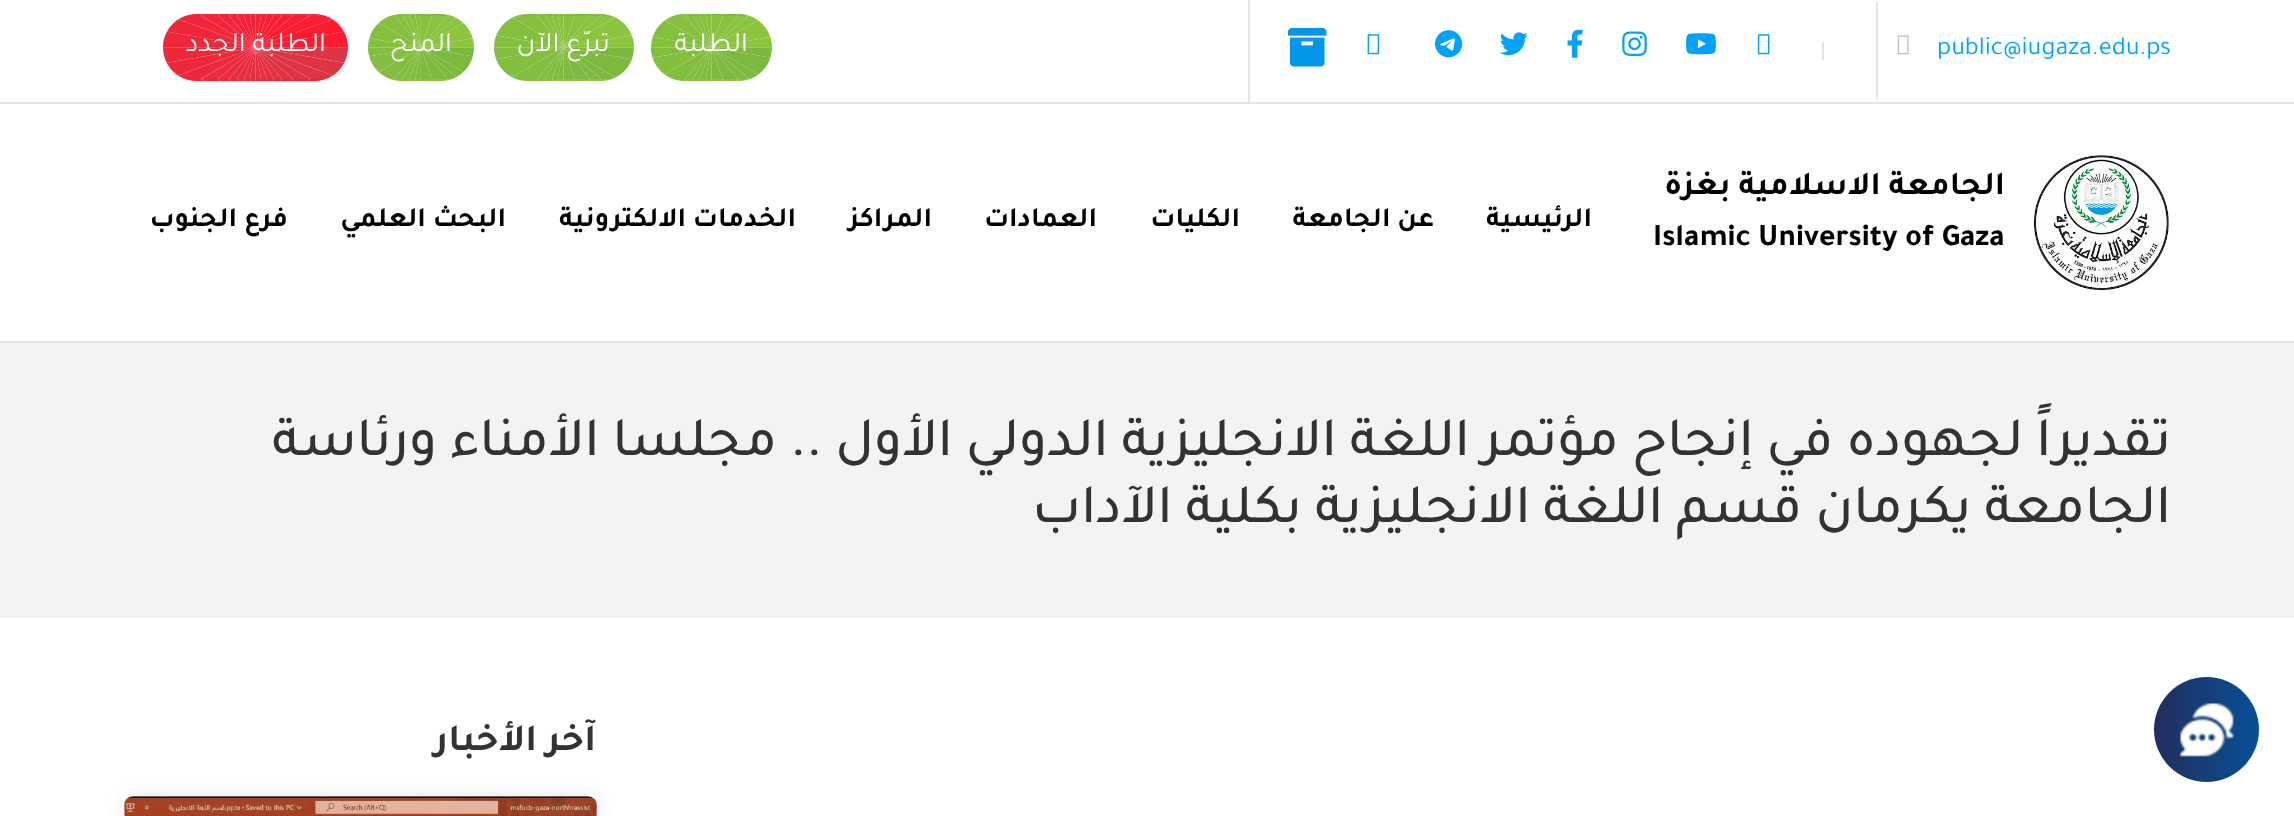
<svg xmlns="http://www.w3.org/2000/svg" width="2294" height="816">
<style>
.a{font:26.25px Tajawal;fill:#00a3ff}
.b{font:28px Tajawal;direction:rtl;fill:#fff}
.c{font:bold 33.25px Tajawal;direction:rtl;fill:#000}
.d{font:bold 31.5px Tajawal;fill:#000}
.e{font:bold 28px Tajawal;direction:rtl;fill:#000}
.f{font:500 56px Tajawal;direction:rtl;fill:#323232}
.g{font:bold 38.5px Tajawal;direction:rtl;fill:#323232}
</style>
<defs>
<linearGradient id="g1" gradientUnits="userSpaceOnUse" x1="2154" y1="730" x2="2259" y2="730"><stop offset="0" stop-color="#232d5e"/><stop offset="1" stop-color="#075095"/></linearGradient>
</defs>
<rect width="100%" height="100%" fill="#fff"/>
<path fill="#e5e5e5" d="M0 341h2294v2H0z"/>
<path fill="#e5e5e5" d="M0 102h2294v2H0z"/>
<path fill="#e5e5e5" d="M1876 2h2v98H1876z"/>
<image href="1.png" x="1897" y="35" width="12" height="20"/>
<path fill="#e5e5e5" d="M1822 42h2v18H1822z"/>
<path fill="#e5e5e5" d="M1248 0h2v102H1248z"/>
<image href="2.png" x="1757" y="34" width="13" height="21"/>
<image href="3.png" x="1686" y="33" width="30" height="22"/>
<image href="4.png" x="1622" y="31" width="25" height="25"/>
<image href="5.png" x="1567" y="29" width="16" height="29"/>
<image href="6.png" x="1499" y="32" width="29" height="24"/>
<image href="7.png" x="1435" y="30" width="28" height="28"/>
<image href="8.png" x="1367" y="34" width="13" height="21"/>
<image href="9.png" x="1288" y="28" width="39" height="39"/>
<image href="10.png" x="651" y="14" width="121" height="67"/>
<image href="11.png" x="494" y="14" width="140" height="67"/>
<image href="12.png" x="368" y="14" width="106" height="67"/>
<image href="13.png" x="163" y="14" width="185" height="67"/>
<image href="14.png" x="2033" y="155" width="136" height="136"/>
<path fill="#f3f3f3" d="M0 343h2294v275H0z"/>
<circle fill="url(#g1)" cx="2206.5" cy="729.5" r="52.5"/>
<image href="15.png" x="2180" y="703" width="54" height="54"/>
<rect fill="#0000001a" filter="blur(9px)" x="124" y="796" width="473" height="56" rx="9"/>
<rect fill="#fff" x="124" y="796" width="473" height="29" rx="9"/>
<image href="16.png" x="124" y="796" width="473" height="20"/>
<path fill="#0000001a" d="M133 796h455c5 0 9 4 9 9v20h-473v-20c0-5 4-9 9-9z"/>
<text class="a" x="1937" y="54">public@iugaza.edu.ps</text>
<text class="b" x="748" y="51">الطلبة</text>
<text class="b" x="610" y="51">تبرّع الآن</text>
<text class="b" x="452" y="51">المنح</text>
<text class="b" x="326" y="51">الطلبة الجدد</text>
<text class="c" x="2005" y="194">الجامعة الاسلامية بغزة</text>
<text class="d" x="1653" y="245">Islamic University of Gaza</text>
<text class="e" x="1592" y="226">الرئيسية</text>
<text class="e" x="1434" y="226">عن الجامعة</text>
<text class="e" x="1240" y="226">الكليات</text>
<text class="e" x="1097" y="226">العمادات</text>
<text class="e" x="932" y="226">المراكز</text>
<text class="e" x="796" y="226">الخدمات الالكترونية</text>
<text class="e" x="506" y="226">البحث العلمي</text>
<text class="e" x="288" y="226">فرع الجنوب</text>
<text class="f" x="2171" y="455">تقديراً لجهوده في إنجاح مؤتمر اللغة الانجليزية الدولي الأول .. مجلسا الأمناء ورئاسة</text>
<text class="f" x="2171" y="522">الجامعة يكرمان</text>
<text class="f" x="1802" y="522">قسم اللغة الانجليزية بكلية الآداب</text>
<text class="g" x="596" y="750">آخر الأخبار</text>
</svg>
